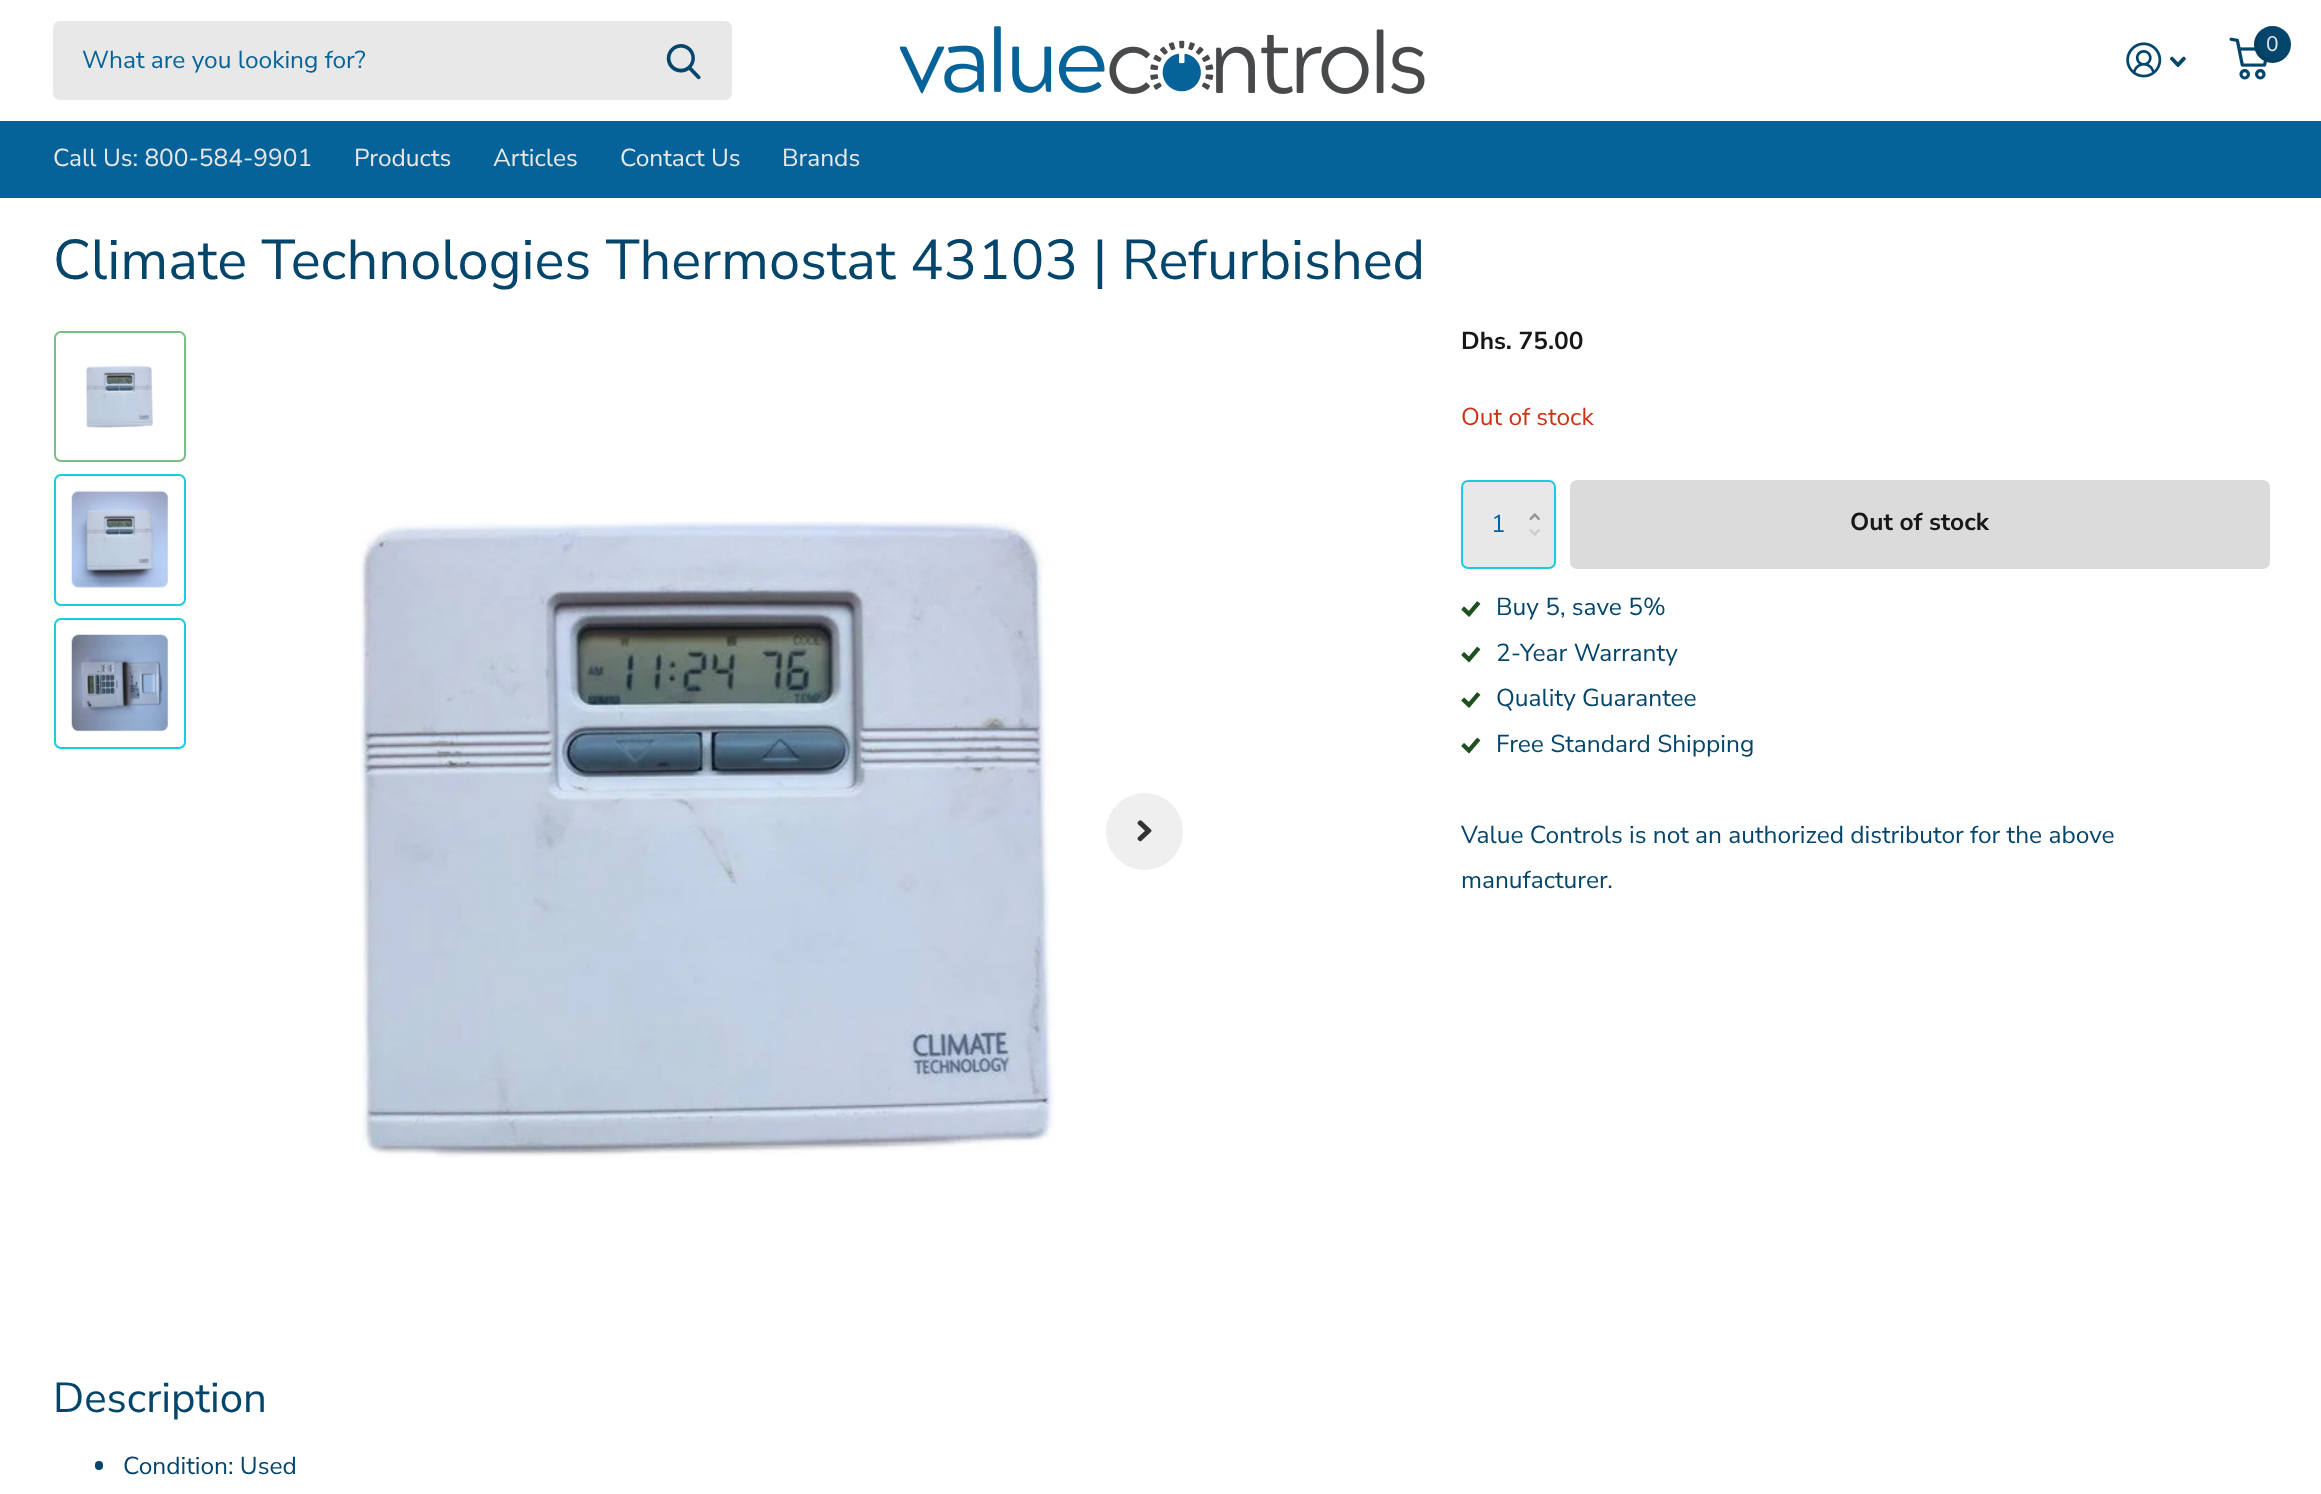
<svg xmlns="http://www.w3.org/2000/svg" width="2321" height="1494">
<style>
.a{font:21px Nunito Sans;fill:#e8e8e8}
.b{font:24.5px Nunito Sans;fill:#066399}
.c{font:24.5px Nunito Sans;fill:#e8e8e8}
.d{font:56px Nunito Sans;fill:#04456b}
.e{font:bold 24.5px Nunito Sans;fill:#161718}
.f{font:24.5px Nunito Sans;fill:#ca3416}
.g{font:24.5px Nunito Sans;fill:#04456b}
.h{font:42px Nunito Sans;fill:#04456b}
</style>
<rect width="100%" height="100%" fill="#fff"/>
<image href="1.png" x="2126" y="42" width="36" height="36"/>
<image href="2.png" x="2170" y="56" width="16" height="12"/>
<image href="3.png" x="2229" y="37" width="38" height="43"/>
<circle fill="#04456b" cx="2272.5" cy="44.5" r="18.5"/>
<path fill="#0000001a" d="M2286.5 56.5c-2.5 2-6 3.5-10.5 3.5c-18 0-22.5-20.5-14-31c-9.5 6.5-11 20.5-2.5 28.5c7.5 7.5 20 7 27-1z"/>
<rect fill="#e8e8e8" x="53" y="21" width="679" height="79" rx="7"/>
<image href="4.png" x="666" y="44" width="35" height="36"/>
<image href="5.png" x="900" y="26" width="525" height="68"/>
<path fill="#066399" d="M0 121h2321v77H0z"/>
<rect fill="#e8e8e8" stroke="#1accdc" stroke-width="2" x="1462" y="481" width="93" height="87" rx="6"/>
<image href="6.png" x="1529" y="513" width="11" height="8"/>
<image href="7.png" x="1529" y="529" width="11" height="7"/>
<rect fill="#dbdbdb" x="1570" y="480" width="700" height="89" rx="7"/>
<image href="8.png" x="1461" y="601" width="20" height="16"/>
<image href="9.png" x="1461" y="646" width="20" height="17"/>
<image href="8.png" x="1461" y="692" width="20" height="16"/>
<image href="9.png" x="1461" y="737" width="20" height="17"/>
<rect fill="none" stroke="#79bd87" stroke-width="2" x="55" y="332" width="130" height="129" rx="6"/>
<image href="10.png" x="85" y="365" width="69" height="63"/>
<rect fill="none" stroke="#1accdc" stroke-width="2" x="55" y="475" width="130" height="130" rx="6"/>
<image href="11.png" x="71" y="490" width="98" height="98"/>
<rect fill="none" stroke="#1accdc" stroke-width="2" x="55" y="619" width="130" height="129" rx="6"/>
<image href="12.png" x="71" y="634" width="98" height="98"/>
<circle fill="#efefef" cx="1144.5" cy="831.5" r="38.5"/>
<image href="13.png" x="1137" y="820" width="15" height="22"/>
<image href="14.png" x="360" y="521" width="695" height="637"/>
<rect fill="#04456b" x="95" y="1461" width="8" height="9" rx="4"/>
<text class="a" x="2266" y="51">0</text>
<text class="b" x="82" y="68">What are you looking for?</text>
<text class="c" x="53" y="166">Call Us: 800-584-9901</text>
<text class="c" x="354" y="166">Products</text>
<text class="c" x="493" y="166">Articles</text>
<text class="c" x="620" y="166">Contact Us</text>
<text class="c" x="782" y="166">Brands</text>
<text class="d" x="53" y="279">Climate Technologies Thermostat 43103 | Refurbished</text>
<text class="e" x="1461" y="349">Dhs. 75.00</text>
<text class="f" x="1461" y="425">Out of stock</text>
<text class="b" x="1491" y="532">1</text>
<text class="e" x="1850" y="530">Out of stock</text>
<text class="g" x="1496" y="615">Buy 5, save 5%</text>
<text class="g" x="1496" y="661">2-Year Warranty</text>
<text class="g" x="1496" y="706">Quality Guarantee</text>
<text class="g" x="1496" y="752">Free Standard Shipping</text>
<text class="g" x="1461" y="843">Value Controls is not an authorized distributor for the above</text>
<text class="g" x="1461" y="888">manufacturer.</text>
<text class="h" x="53" y="1412">Description</text>
<text class="g" x="123" y="1474">Condition: Used</text>
</svg>
